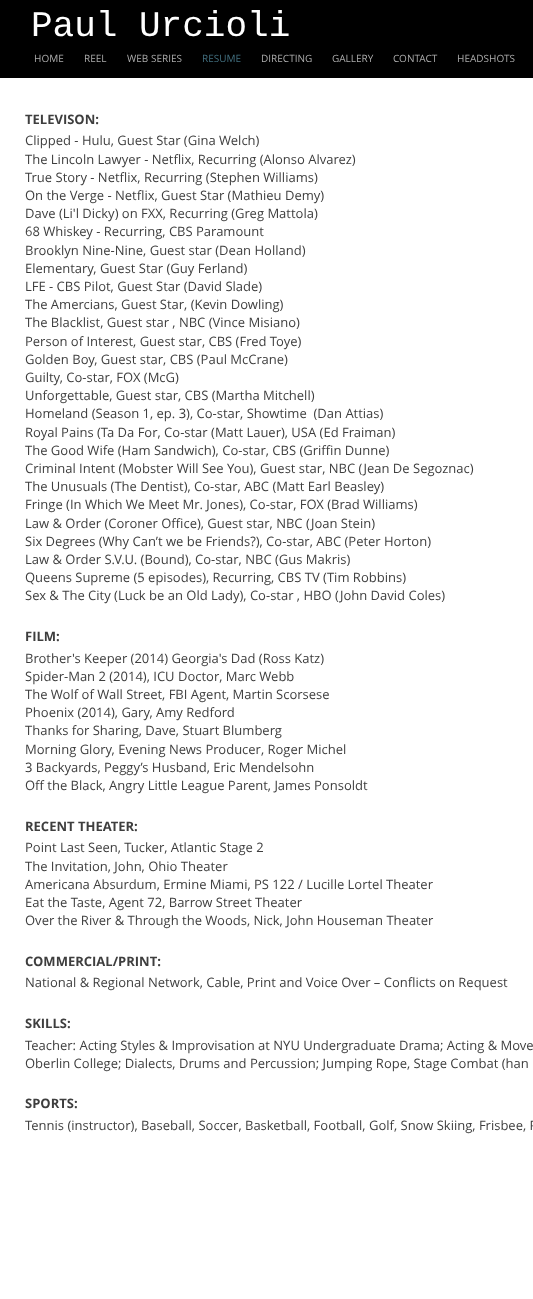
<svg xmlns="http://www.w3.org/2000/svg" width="533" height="1299">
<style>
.a{font:36px Liberation Mono;fill:#fff}
.b{font:10px Open Sans;fill:#ababab}
.c{font:10px Open Sans;fill:#426f7f}
.d{font:bold 13px Open Sans;fill:#3e3e3e}
.e{font:13px Open Sans;fill:#3e3e3e}
</style>
<rect width="100%" height="100%" fill="#fff"/>
<path fill="#000" d="M0 0h533v78H0z"/>
<text class="a" x="31" y="36">Paul Urcioli</text>
<text class="b" x="34" y="62">HOME</text>
<text class="b" x="84" y="62">REEL</text>
<text class="b" x="127" y="62">WEB SERIES</text>
<text class="c" x="202" y="62">RESUME</text>
<text class="b" x="261" y="62">DIRECTING</text>
<text class="b" x="332" y="62">GALLERY</text>
<text class="b" x="393" y="62">CONTACT</text>
<text class="b" x="457" y="62">HEADSHOTS</text>
<text class="d" x="25" y="124">TELEVISON:</text>
<text class="e" x="25" y="145">Clipped - Hulu, Guest Star (Gina Welch)</text>
<text class="e" x="25" y="164">The Lincoln Lawyer - Netflix, Recurring (Alonso Alvarez)</text>
<text class="e" x="25" y="182">True Story - Netflix, Recurring (Stephen Williams)</text>
<text class="e" x="25" y="200">On the Verge - Netflix, Guest Star (Mathieu Demy)</text>
<text class="e" x="25" y="218">Dave (Li'l Dicky) on FXX, Recurring (Greg Mattola)</text>
<text class="e" x="25" y="236">68 Whiskey - Recurring, CBS Paramount</text>
<text class="e" x="25" y="255">Brooklyn Nine-Nine, Guest star (Dean Holland)</text>
<text class="e" x="25" y="273">Elementary, Guest Star (Guy Ferland)</text>
<text class="e" x="25" y="291">LFE - CBS Pilot, Guest Star (David Slade)</text>
<text class="e" x="25" y="309">The Amercians, Guest Star, (Kevin Dowling)</text>
<text class="e" x="25" y="327">The Blacklist, Guest star , NBC (Vince Misiano)</text>
<text class="e" x="25" y="346">Person of Interest, Guest star, CBS (Fred Toye)</text>
<text class="e" x="25" y="364">Golden Boy, Guest star, CBS (Paul McCrane)</text>
<text class="e" x="25" y="382">Guilty, Co-star, FOX (McG)</text>
<text class="e" x="25" y="400">Unforgettable, Guest star, CBS (Martha Mitchell)</text>
<text class="e" xml:space="preserve" x="25" y="418">Homeland (Season 1, ep. 3), Co-star, Showtime  (Dan Attias)</text>
<text class="e" x="25" y="437">Royal Pains (Ta Da For, Co-star (Matt Lauer), USA (Ed Fraiman)</text>
<text class="e" x="25" y="455">The Good Wife (Ham Sandwich), Co-star, CBS (Griffin Dunne)</text>
<text class="e" x="25" y="473">Criminal Intent (Mobster Will See You), Guest star, NBC (Jean De Segoznac)</text>
<text class="e" x="25" y="491">The Unusuals (The Dentist), Co-star, ABC (Matt Earl Beasley)</text>
<text class="e" x="25" y="509">Fringe (In Which We Meet Mr. Jones), Co-star, FOX (Brad Williams)</text>
<text class="e" x="25" y="528">Law &amp; Order (Coroner Office), Guest star, NBC (Joan Stein)</text>
<text class="e" x="25" y="546">Six Degrees (Why Can’t we be Friends?), Co-star, ABC (Peter Horton)</text>
<text class="e" x="25" y="564">Law &amp; Order S.V.U. (Bound), Co-star, NBC (Gus Makris)</text>
<text class="e" x="25" y="582">Queens Supreme (5 episodes), Recurring, CBS TV (Tim Robbins)</text>
<text class="e" x="25" y="600">Sex &amp; The City (Luck be an Old Lady), Co-star , HBO (John David Coles)</text>
<text class="d" x="25" y="641">FILM:</text>
<text class="e" x="25" y="663">Brother's Keeper (2014) Georgia's Dad (Ross Katz)</text>
<text class="e" x="25" y="681">Spider-Man 2 (2014), ICU Doctor, Marc Webb</text>
<text class="e" x="25" y="699">The Wolf of Wall Street, FBI Agent, Martin Scorsese</text>
<text class="e" x="25" y="717">Phoenix (2014), Gary, Amy Redford</text>
<text class="e" x="25" y="735">Thanks for Sharing, Dave, Stuart Blumberg</text>
<text class="e" x="25" y="754">Morning Glory, Evening News Producer, Roger Michel</text>
<text class="e" x="25" y="772">3 Backyards, Peggy’s Husband, Eric Mendelsohn</text>
<text class="e" x="25" y="790">Off the Black, Angry Little League Parent, James Ponsoldt</text>
<text class="d" x="25" y="831">RECENT THEATER:</text>
<text class="e" x="25" y="852">Point Last Seen, Tucker, Atlantic Stage 2</text>
<text class="e" x="25" y="871">The Invitation, John, Ohio Theater</text>
<text class="e" x="25" y="889">Americana Absurdum, Ermine Miami, PS 122 / Lucille Lortel Theater</text>
<text class="e" x="25" y="907">Eat the Taste, Agent 72, Barrow Street Theater</text>
<text class="e" x="25" y="925">Over the River &amp; Through the Woods, Nick, John Houseman Theater</text>
<text class="d" x="25" y="966">COMMERCIAL/PRINT:</text>
<text class="e" x="25" y="987">National &amp; Regional Network, Cable, Print and Voice Over – Conflicts on Request</text>
<text class="d" x="25" y="1028">SKILLS:</text>
<text class="e" x="25" y="1050">Teacher: Acting Styles &amp; Improvisation at NYU Undergraduate Drama; Acting &amp; Move</text>
<text class="e" x="25" y="1068">Oberlin College; Dialects, Drums and Percussion; Jumping Rope, Stage Combat (han</text>
<text class="d" x="25" y="1108">SPORTS:</text>
<text class="e" x="25" y="1130">Tennis (instructor), Baseball, Soccer, Basketball, Football, Golf, Snow Skiing, Frisbee, P</text>
</svg>
